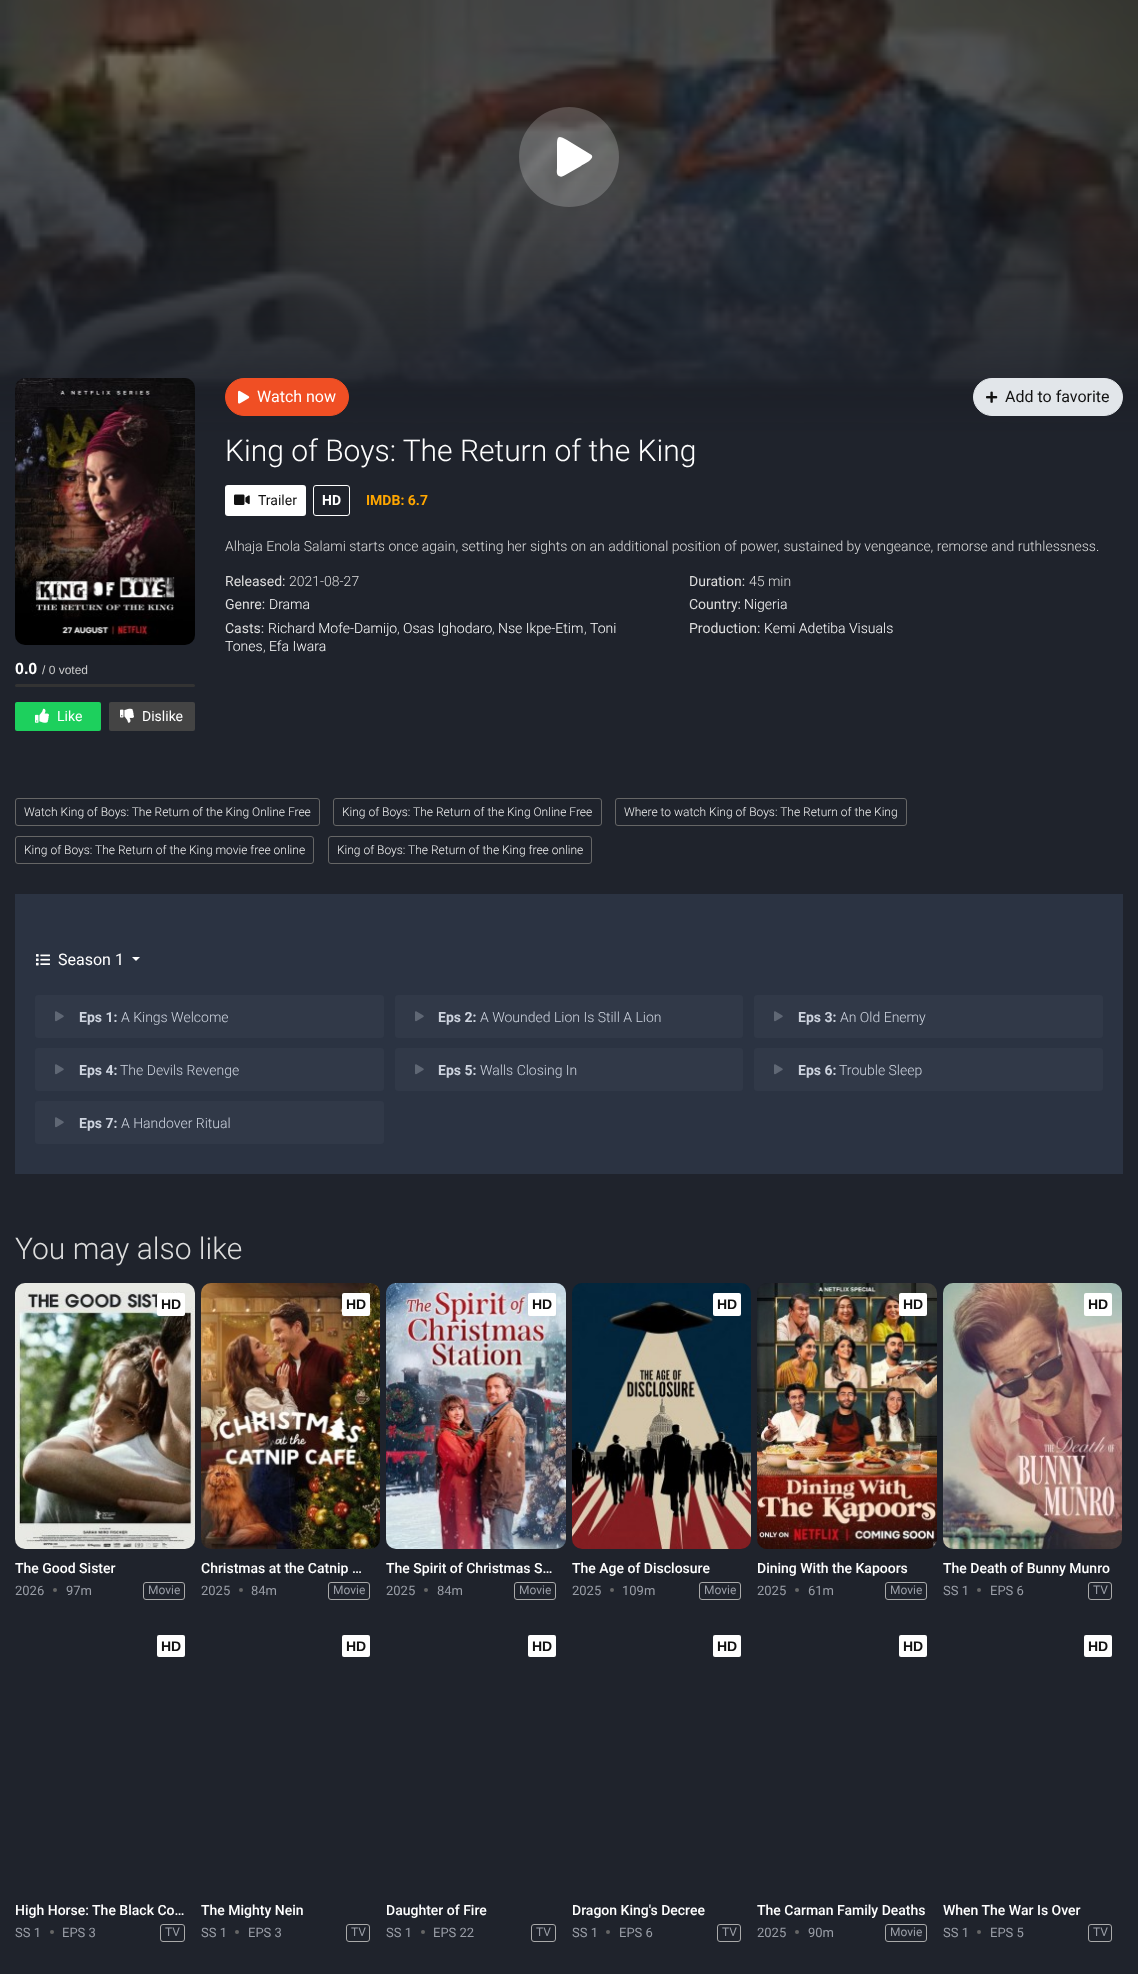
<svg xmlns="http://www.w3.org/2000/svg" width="1138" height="1974">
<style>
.a{font:16px Roboto;fill:#fff}
.b{font:16px Roboto;fill:#111}
.c{font:300 30px Roboto;fill:#fff}
.d{font:14px Roboto;fill:#111}
.e{font:bold 14px Roboto;fill:#fff}
.f{font:bold 14px Roboto;fill:#ffa600}
.g{font:300 14px Roboto;fill:#ddd}
.h{font:14px Roboto;fill:#ddd}
.i{font:300 14px Roboto;fill:#fff}
.j{font:bold 16px Liberation Sans;fill:#fff}
.k{font:12px Liberation Sans;fill:#ccc}
.l{font:14px Roboto;fill:#fff}
.m{font:300 12px Roboto;fill:#eee}
.n{font:bold 14px Roboto;fill:#ced4df}
.o{font:300 14px Roboto;fill:#ced4df}
.p{font:300 30px Roboto;fill:#ddd}
.q{font:bold 14px Liberation Sans;fill:#111}
.r{font:500 14px Roboto;fill:#fff}
.s{font:13px Roboto;fill:#9a9ea7}
.t{font:12px Roboto;fill:#9a9ea7}
</style>
<rect width="100%" height="100%" fill="#1f232c"/>
<image href="1.png" x="0" y="0" width="1138" height="436"/>
<circle fill="#ffffff33" cx="569" cy="157" r="50"/>
<path fill="#fff" d="M590 154c8 4-8 11-9 12l-14 8c-2 1-5 4-8 2c-3-1-2-6-2-8v-22c0-10 1-11 10-6z"/>
<rect fill="#f04f24" stroke="#f04f24" x="225.5" y="378.5" width="123" height="37" rx="18.5"/>
<image href="2.png" x="238" y="390" width="12" height="14"/>
<rect fill="#e2e6ea" stroke="#e2e6ea" x="973.5" y="378.5" width="149" height="37" rx="18.5"/>
<image href="3.png" x="986" y="391" width="12" height="12"/>
<rect fill="#fff" x="225" y="485" width="81" height="31" rx="3"/>
<image href="4.png" x="234" y="494" width="16" height="11"/>
<rect fill="none" stroke="#fff" x="313.5" y="485.5" width="36" height="30" rx="2.5"/>
<image href="5.png" x="15" y="378" width="180" height="267"/>
<rect fill="#333" x="15" y="684" width="180" height="3" rx="1.5"/>
<rect fill="#1dd05d" x="15" y="702" width="86" height="29" rx="2"/>
<image href="6.png" x="35" y="708" width="14" height="15"/>
<rect fill="#444" x="109" y="702" width="86" height="29" rx="2"/>
<image href="7.png" x="120" y="708" width="14" height="15"/>
<rect fill="none" stroke="#666" x="15.5" y="798.5" width="304" height="27" rx="2.5"/>
<rect fill="none" stroke="#666" x="333.5" y="798.5" width="268" height="27" rx="2.5"/>
<rect fill="none" stroke="#666" x="615.5" y="798.5" width="291" height="27" rx="2.5"/>
<rect fill="none" stroke="#666" x="15.5" y="836.5" width="298" height="27" rx="2.5"/>
<rect fill="none" stroke="#666" x="328.5" y="836.5" width="263" height="27" rx="2.5"/>
<path fill="#2b3342" d="M15 894h1108v280H15z"/>
<image href="8.png" x="36" y="954" width="14" height="12"/>
<path fill="#fff" d="M132 957h8l-4 4z"/>
<rect fill="#313948" x="35" y="995" width="349" height="43" rx="3"/>
<image href="9.png" x="55" y="1011" width="9" height="11"/>
<rect fill="#313948" x="395" y="995" width="348" height="43" rx="3"/>
<image href="9.png" x="415" y="1011" width="9" height="11"/>
<rect fill="#313948" x="754" y="995" width="349" height="43" rx="3"/>
<image href="9.png" x="774" y="1011" width="9" height="11"/>
<rect fill="#313948" x="35" y="1048" width="349" height="43" rx="3"/>
<image href="9.png" x="55" y="1064" width="9" height="11"/>
<rect fill="#313948" x="395" y="1048" width="348" height="43" rx="3"/>
<image href="9.png" x="415" y="1064" width="9" height="11"/>
<rect fill="#313948" x="754" y="1048" width="349" height="43" rx="3"/>
<image href="9.png" x="774" y="1064" width="9" height="11"/>
<rect fill="#313948" x="35" y="1101" width="349" height="43" rx="3"/>
<image href="9.png" x="55" y="1117" width="9" height="11"/>
<image href="10.png" x="15" y="1283" width="180" height="266"/>
<rect fill="#fff" x="157" y="1293" width="28" height="23" rx="2"/>
<circle fill="#666" cx="55" cy="1590" r="2"/>
<rect fill="none" stroke="#aaa" x="143.5" y="1582.5" width="41" height="17" rx="2.5"/>
<image href="11.png" x="201" y="1283" width="179" height="266"/>
<rect fill="#fff" x="342" y="1293" width="28" height="23" rx="2"/>
<circle fill="#666" cx="241" cy="1590" r="2"/>
<rect fill="none" stroke="#aaa" x="328.5" y="1582.5" width="41" height="17" rx="2.5"/>
<image href="12.png" x="386" y="1283" width="180" height="266"/>
<rect fill="#fff" x="528" y="1293" width="28" height="23" rx="2"/>
<circle fill="#666" cx="426" cy="1590" r="2"/>
<rect fill="none" stroke="#aaa" x="514.5" y="1582.5" width="41" height="17" rx="2.5"/>
<image href="13.png" x="572" y="1283" width="179" height="266"/>
<rect fill="#fff" x="713" y="1293" width="28" height="23" rx="2"/>
<circle fill="#666" cx="612" cy="1590" r="2"/>
<rect fill="none" stroke="#aaa" x="699.5" y="1582.5" width="41" height="17" rx="2.5"/>
<image href="14.png" x="757" y="1283" width="180" height="266"/>
<rect fill="#fff" x="899" y="1293" width="28" height="23" rx="2"/>
<circle fill="#666" cx="797" cy="1590" r="2"/>
<rect fill="none" stroke="#aaa" x="885.5" y="1582.5" width="41" height="17" rx="2.5"/>
<image href="15.png" x="943" y="1283" width="179" height="266"/>
<rect fill="#fff" x="1084" y="1293" width="28" height="23" rx="2"/>
<circle fill="#666" cx="979" cy="1590" r="2"/>
<rect fill="none" stroke="#aaa" x="1088.5" y="1582.5" width="23" height="17" rx="2.5"/>
<rect fill="#fff" x="157" y="1635" width="28" height="22" rx="2"/>
<circle fill="#666" cx="52" cy="1932" r="2"/>
<rect fill="none" stroke="#aaa" x="160.5" y="1924.5" width="24" height="17" rx="2.5"/>
<rect fill="#fff" x="342" y="1635" width="28" height="22" rx="2"/>
<circle fill="#666" cx="237" cy="1932" r="2"/>
<rect fill="none" stroke="#aaa" x="346.5" y="1924.5" width="23" height="17" rx="2.5"/>
<rect fill="#fff" x="528" y="1635" width="28" height="22" rx="2"/>
<circle fill="#666" cx="423" cy="1932" r="2"/>
<rect fill="none" stroke="#aaa" x="531.5" y="1924.5" width="24" height="17" rx="2.5"/>
<rect fill="#fff" x="713" y="1635" width="28" height="22" rx="2"/>
<circle fill="#666" cx="608" cy="1932" r="2"/>
<rect fill="none" stroke="#aaa" x="717.5" y="1924.5" width="23" height="17" rx="2.5"/>
<rect fill="#fff" x="899" y="1635" width="28" height="22" rx="2"/>
<circle fill="#666" cx="797" cy="1932" r="2"/>
<rect fill="none" stroke="#aaa" x="885.5" y="1924.5" width="41" height="17" rx="2.5"/>
<rect fill="#fff" x="1084" y="1635" width="28" height="22" rx="2"/>
<circle fill="#666" cx="979" cy="1932" r="2"/>
<rect fill="none" stroke="#aaa" x="1088.5" y="1924.5" width="23" height="17" rx="2.5"/>
<text class="a" x="257" y="402">Watch now</text>
<text class="b" x="1005" y="402">Add to favorite</text>
<text class="c" x="225" y="461">King of Boys: The Return of the King</text>
<text class="d" x="258" y="505">Trailer</text>
<text class="e" x="322" y="505">HD</text>
<text class="f" x="366" y="505">IMDB: 6.7</text>
<text class="g" x="225" y="551">Alhaja Enola Salami starts once again, setting her sights on an additional position of power, sustained by vengeance, remorse and ruthlessness.</text>
<text class="h" x="225" y="586">Released:</text>
<text class="g" x="289" y="586">2021-08-27</text>
<text class="h" x="225" y="609">Genre:</text>
<text class="i" x="269" y="609">Drama</text>
<text class="h" x="225" y="633">Casts:</text>
<text class="i" x="268" y="633">Richard Mofe-Damijo</text>
<text class="g" x="397" y="633">,</text>
<text class="i" x="403" y="633">Osas Ighodaro</text>
<text class="g" x="492" y="633">,</text>
<text class="i" x="498" y="633">Nse Ikpe-Etim</text>
<text class="g" x="584" y="633">,</text>
<text class="i" x="590" y="633">Toni</text>
<text class="i" x="225" y="651">Tones</text>
<text class="g" x="263" y="651">,</text>
<text class="i" x="269" y="651">Efa Iwara</text>
<text class="h" x="689" y="586">Duration:</text>
<text class="g" x="749" y="586">45 min</text>
<text class="h" x="689" y="609">Country:</text>
<text class="i" x="744" y="609">Nigeria</text>
<text class="h" x="689" y="633">Production:</text>
<text class="i" x="764" y="633">Kemi Adetiba Visuals</text>
<text class="j" x="15" y="674">0.0</text>
<text class="k" x="42" y="674">/ 0 voted</text>
<text class="l" x="57" y="721">Like</text>
<text class="l" x="142" y="721">Dislike</text>
<text class="m" x="24" y="816">Watch King of Boys: The Return of the King Online Free</text>
<text class="m" x="342" y="816">King of Boys: The Return of the King Online Free</text>
<text class="m" x="624" y="816">Where to watch King of Boys: The Return of the King</text>
<text class="m" x="24" y="854">King of Boys: The Return of the King movie free online</text>
<text class="m" x="337" y="854">King of Boys: The Return of the King free online</text>
<text class="a" x="58" y="965">Season 1</text>
<text class="n" x="79" y="1022">Eps 1:</text>
<text class="o" x="121" y="1022">A Kings Welcome</text>
<text class="n" x="438" y="1022">Eps 2:</text>
<text class="o" x="480" y="1022">A Wounded Lion Is Still A Lion</text>
<text class="n" x="798" y="1022">Eps 3:</text>
<text class="o" x="840" y="1022">An Old Enemy</text>
<text class="n" x="79" y="1075">Eps 4:</text>
<text class="o" x="120" y="1075">The Devils Revenge</text>
<text class="n" x="438" y="1075">Eps 5:</text>
<text class="o" x="480" y="1075">Walls Closing In</text>
<text class="n" x="798" y="1075">Eps 6:</text>
<text class="o" x="839" y="1075">Trouble Sleep</text>
<text class="n" x="79" y="1128">Eps 7:</text>
<text class="o" x="121" y="1128">A Handover Ritual</text>
<text class="p" x="15" y="1259">You may also like</text>
<text class="q" x="161" y="1309">HD</text>
<text class="r" x="15" y="1573">The Good Sister</text>
<text class="s" x="15" y="1595">2026</text>
<text class="s" x="66" y="1595">97m</text>
<text class="t" x="148" y="1594">Movie</text>
<text class="q" x="346" y="1309">HD</text>
<text class="r" x="201" y="1573">Christmas at the Catnip …</text>
<text class="s" x="201" y="1595">2025</text>
<text class="s" x="251" y="1595">84m</text>
<text class="t" x="333" y="1594">Movie</text>
<text class="q" x="532" y="1309">HD</text>
<text class="r" x="386" y="1573">The Spirit of Christmas S…</text>
<text class="s" x="386" y="1595">2025</text>
<text class="s" x="437" y="1595">84m</text>
<text class="t" x="519" y="1594">Movie</text>
<text class="q" x="717" y="1309">HD</text>
<text class="r" x="572" y="1573">The Age of Disclosure</text>
<text class="s" x="572" y="1595">2025</text>
<text class="s" x="622" y="1595">109m</text>
<text class="t" x="704" y="1594">Movie</text>
<text class="q" x="903" y="1309">HD</text>
<text class="r" x="757" y="1573">Dining With the Kapoors</text>
<text class="s" x="757" y="1595">2025</text>
<text class="s" x="808" y="1595">61m</text>
<text class="t" x="890" y="1594">Movie</text>
<text class="q" x="1088" y="1309">HD</text>
<text class="r" x="943" y="1573">The Death of Bunny Munro</text>
<text class="s" x="943" y="1595">SS 1</text>
<text class="s" x="990" y="1595">EPS 6</text>
<text class="t" x="1093" y="1594">TV</text>
<text class="q" x="161" y="1651">HD</text>
<text class="r" x="15" y="1915">High Horse: The Black Co…</text>
<text class="s" x="15" y="1937">SS 1</text>
<text class="s" x="62" y="1937">EPS 3</text>
<text class="t" x="165" y="1936">TV</text>
<text class="q" x="346" y="1651">HD</text>
<text class="r" x="201" y="1915">The Mighty Nein</text>
<text class="s" x="201" y="1937">SS 1</text>
<text class="s" x="248" y="1937">EPS 3</text>
<text class="t" x="351" y="1936">TV</text>
<text class="q" x="532" y="1651">HD</text>
<text class="r" x="386" y="1915">Daughter of Fire</text>
<text class="s" x="386" y="1937">SS 1</text>
<text class="s" x="433" y="1937">EPS 22</text>
<text class="t" x="536" y="1936">TV</text>
<text class="q" x="717" y="1651">HD</text>
<text class="r" x="572" y="1915">Dragon King's Decree</text>
<text class="s" x="572" y="1937">SS 1</text>
<text class="s" x="619" y="1937">EPS 6</text>
<text class="t" x="722" y="1936">TV</text>
<text class="q" x="903" y="1651">HD</text>
<text class="r" x="757" y="1915">The Carman Family Deaths</text>
<text class="s" x="757" y="1937">2025</text>
<text class="s" x="808" y="1937">90m</text>
<text class="t" x="890" y="1936">Movie</text>
<text class="q" x="1088" y="1651">HD</text>
<text class="r" x="943" y="1915">When The War Is Over</text>
<text class="s" x="943" y="1937">SS 1</text>
<text class="s" x="990" y="1937">EPS 5</text>
<text class="t" x="1093" y="1936">TV</text>
</svg>
